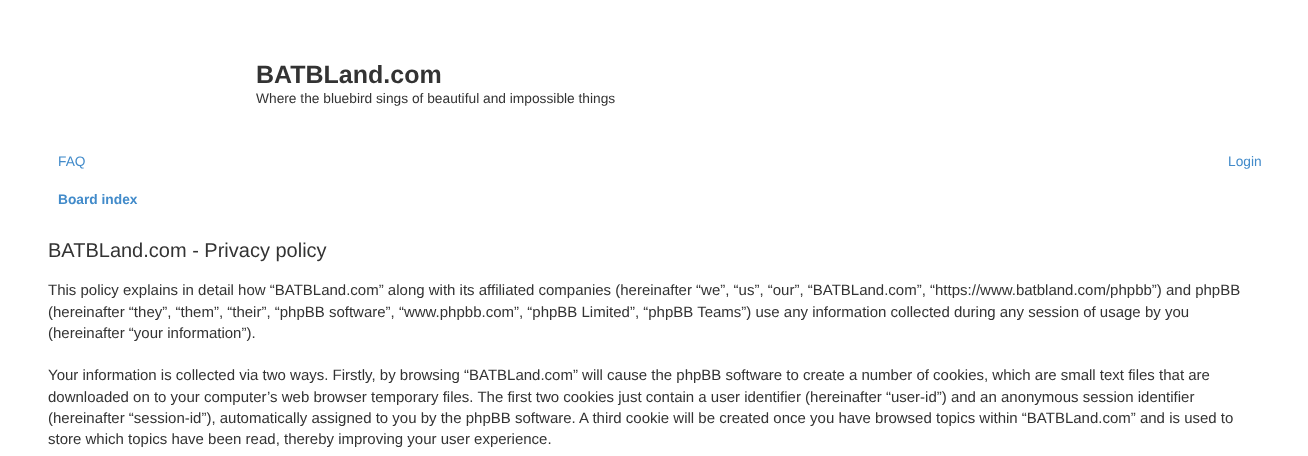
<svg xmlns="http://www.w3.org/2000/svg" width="1308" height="456">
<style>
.a{font:bold 25px Liberation Sans;fill:#333}
.b{font:13.75px Liberation Sans;fill:#333}
.c{font:13.75px Liberation Sans;fill:#428bca}
.d{font:bold 13.75px Liberation Sans;fill:#428bca}
.e{font:20px Liberation Sans;fill:#333}
.f{font:15px Liberation Sans;fill:#333}
</style>
<rect width="100%" height="100%" fill="#fff"/>
<text class="a" x="256" y="83">BATBLand.com</text>
<text class="b" x="256" y="103">Where the bluebird sings of beautiful and impossible things</text>
<text class="c" x="58" y="166">FAQ</text>
<text class="c" x="1228" y="166">Login</text>
<text class="d" x="58" y="204">Board index</text>
<text class="e" x="48" y="257">BATBLand.com - Privacy policy</text>
<text class="f" x="48" y="295">This policy explains in detail how “BATBLand.com” along with its affiliated companies (hereinafter “we”, “us”, “our”, “BATBLand.com”, “https://www.batbland.com/phpbb”) and phpBB</text>
<text class="f" x="48" y="317">(hereinafter “they”, “them”, “their”, “phpBB software”, “www.phpbb.com”, “phpBB Limited”, “phpBB Teams”) use any information collected during any session of usage by you</text>
<text class="f" x="48" y="338">(hereinafter “your information”).</text>
<text class="f" x="48" y="380">Your information is collected via two ways. Firstly, by browsing “BATBLand.com” will cause the phpBB software to create a number of cookies, which are small text files that are</text>
<text class="f" x="48" y="402">downloaded on to your computer’s web browser temporary files. The first two cookies just contain a user identifier (hereinafter “user-id”) and an anonymous session identifier</text>
<text class="f" x="48" y="423">(hereinafter “session-id”), automatically assigned to you by the phpBB software. A third cookie will be created once you have browsed topics within “BATBLand.com” and is used to</text>
<text class="f" x="48" y="444">store which topics have been read, thereby improving your user experience.</text>
</svg>
